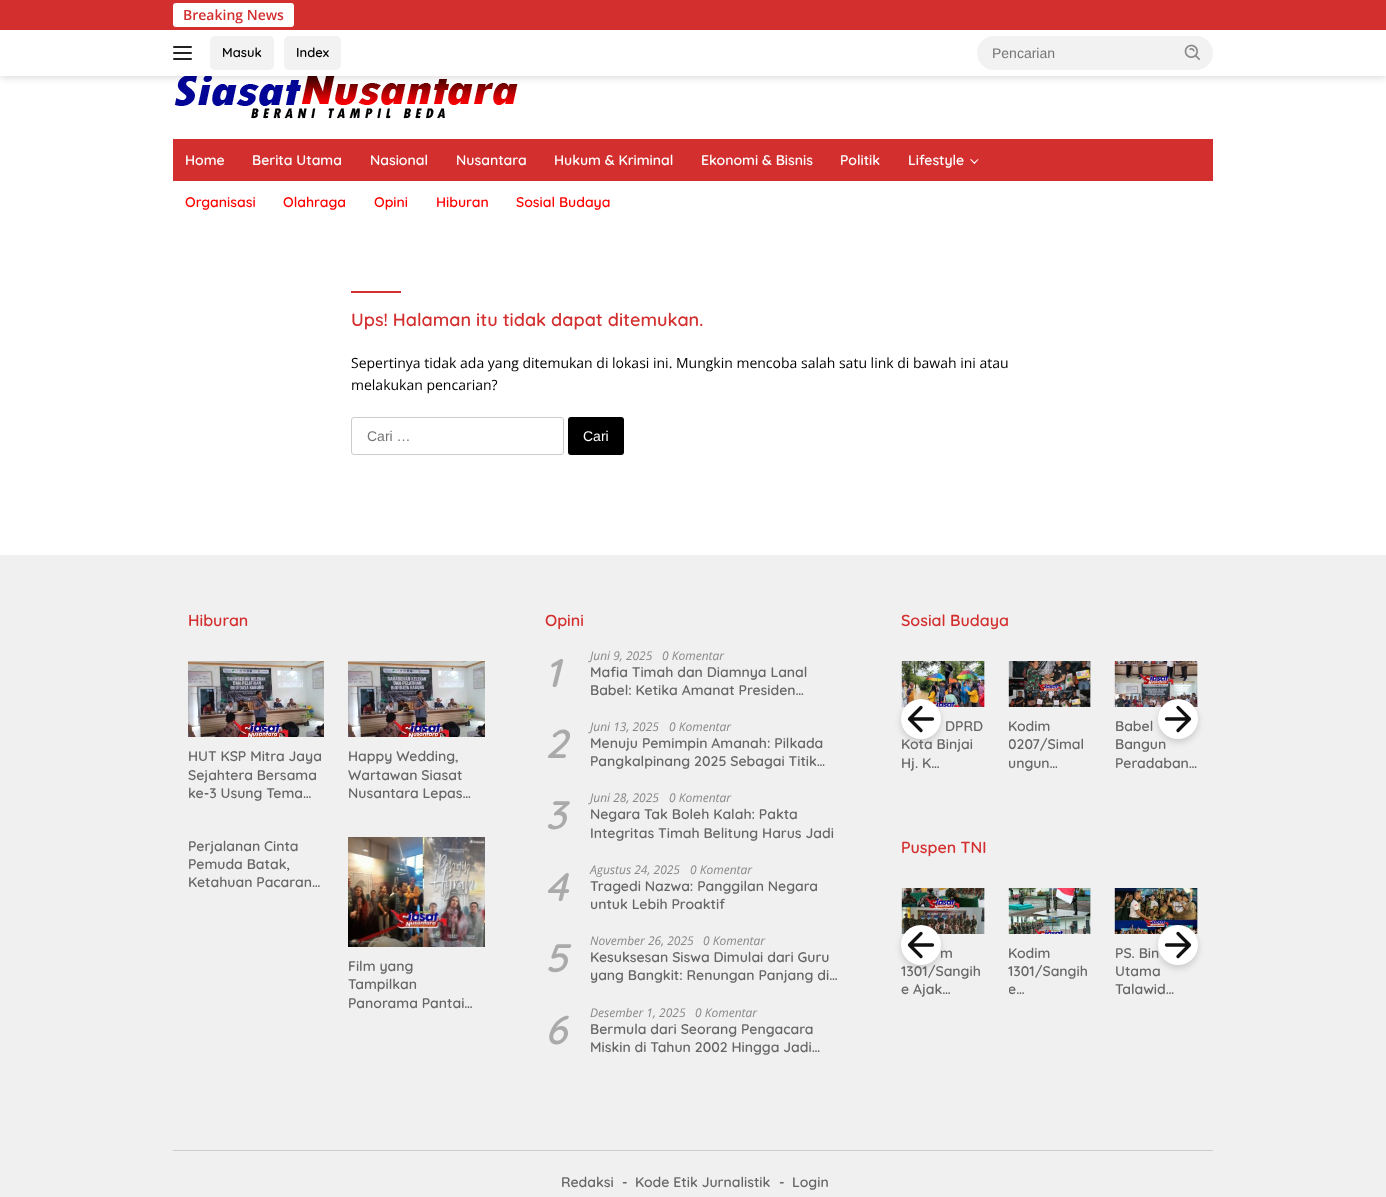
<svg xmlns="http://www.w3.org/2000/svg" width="1386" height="1197">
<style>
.a{font:600 14px Open Sans;fill:#d32f2f}
.b{font:600 13px Quicksand;fill:#000}
.c{font:14px Liberation Sans;fill:#757575}
.d{font:600 14px Quicksand;fill:#fff}
.e{font:600 14px Quicksand;fill:#f00}
.f{font:600 18px Quicksand;fill:#d32f2f}
.g{font:14px Open Sans;fill:#000}
.h{font:14px Liberation Sans;fill:#fff}
.i{font:600 16px Quicksand;fill:#d32f2f}
.j{font:600 14px Quicksand;fill:#666}
.k{font:italic 600 40px Quicksand;fill:#aaa}
.l{font:italic 12px Open Sans;fill:#888}
</style>
<defs>
<clipPath id="clip1"><path d="M1009 717h82v55H1009z"/></clipPath>
<clipPath id="clip2"><path d="M1009 944h82v54H1009z"/></clipPath>
</defs>
<rect width="100%" height="100%" fill="#fff"/>
<image href="2.png" x="174" y="76" width="344" height="43"/>
<path fill="#00000033" filter="blur(5px)" d="M0 0h1386v76H0z"/>
<path fill="#fff" d="M0 30h1386v46H0z"/>
<path fill="#d32f2f" d="M0 0h1386v30H0z"/>
<rect fill="#fff" x="173" y="3" width="121" height="24" rx="3"/>
<rect fill="#222" x="173" y="46" width="19" height="2" rx="1"/>
<rect fill="#222" x="173" y="52" width="19" height="2" rx="1"/>
<rect fill="#222" x="173" y="58" width="19" height="2" rx="1"/>
<rect fill="#f2f2f2" x="210" y="36" width="64" height="34" rx="5"/>
<rect fill="#f2f2f2" x="284" y="36" width="57" height="34" rx="5"/>
<rect fill="#f2f2f2" x="977" y="36" width="236" height="34" rx="17"/>
<image href="1.png" x="1184" y="44" width="17" height="17"/>
<path fill="#d32f2f" d="M173 139h1040v42H173z"/>
<path fill="#fff" d="M978 159l.5 .5l-4 4.5l-1-1z"/>
<path fill="#fff" d="M971 159l4 4l-.5 1l-4.5-4.5z"/>
<path fill="#d32f2f" d="M351 291h50v2H351z"/>
<rect fill="none" stroke="#ccc" x="351.5" y="417.5" width="212" height="37" rx="2.5"/>
<rect fill="#000" x="568" y="417" width="56" height="38" rx="3"/>
<path fill="#f0f0f0" d="M0 555h1386v642H0z"/>
<image href="3.png" x="188" y="661" width="136" height="76"/>
<image href="4.png" x="348" y="661" width="137" height="76"/>
<image href="5.png" x="348" y="837" width="137" height="110"/>
<image href="6.png" x="901" y="661" width="84" height="46"/>
<rect fill="#33333333" filter="blur(3px)" x="901" y="702" width="40" height="40" rx="20"/>
<circle fill="#fff" cx="921" cy="719" r="20"/>
<path fill="none" stroke="#111" stroke-width="3.3" stroke-linecap="round" stroke-linejoin="round" d="M932.5 719h-23m11.5 11.5l-11.5-11.5l11.5-11.5"/>
<image href="8.png" x="1114" y="661" width="84" height="46"/>
<rect fill="#33333333" filter="blur(3px)" x="1158" y="702" width="40" height="40" rx="20"/>
<circle fill="#fff" cx="1178" cy="719" r="20"/>
<path fill="none" stroke="#111" stroke-width="3.3" stroke-linecap="round" stroke-linejoin="round" d="M1166.5 719h23m-11.5-11.5l11.5 11.5l-11.5 11.5"/>
<image href="7.png" x="1008" y="661" width="83" height="46"/>
<image href="9.png" x="901" y="888" width="84" height="46"/>
<rect fill="#33333333" filter="blur(3px)" x="901" y="928" width="40" height="40" rx="20"/>
<image href="11.png" x="1114" y="888" width="84" height="46"/>
<rect fill="#33333333" filter="blur(3px)" x="1158" y="928" width="40" height="40" rx="20"/>
<image href="10.png" x="1008" y="888" width="83" height="46"/>
<path fill="#ccc" d="M173 1150h1040v1H173z"/>
<text class="a" x="183" y="20">Breaking News</text>
<text class="b" x="222" y="57">Masuk</text>
<text class="b" x="296" y="57">Index</text>
<text class="c" x="992" y="58">Pencarian</text>
<text class="d" x="185" y="165">Home</text>
<text class="d" x="252" y="165">Berita Utama</text>
<text class="d" x="370" y="165">Nasional</text>
<text class="d" x="456" y="165">Nusantara</text>
<text class="d" x="554" y="165">Hukum &amp; Kriminal</text>
<text class="d" x="701" y="165">Ekonomi &amp; Bisnis</text>
<text class="d" x="840" y="165">Politik</text>
<text class="d" x="908" y="165">Lifestyle</text>
<text class="e" x="185" y="207">Organisasi</text>
<text class="e" x="283" y="207">Olahraga</text>
<text class="e" x="374" y="207">Opini</text>
<text class="e" x="436" y="207">Hiburan</text>
<text class="e" x="516" y="207">Sosial Budaya</text>
<text class="f" x="351" y="326">Ups! Halaman itu tidak dapat ditemukan.</text>
<text class="g" x="351" y="368">Sepertinya tidak ada yang ditemukan di lokasi ini. Mungkin mencoba salah satu link di bawah ini atau</text>
<text class="g" x="351" y="390">melakukan pencarian?</text>
<text class="c" x="367" y="441">Cari …</text>
<text class="h" x="583" y="441">Cari</text>
<text class="i" x="188" y="626">Hiburan</text>
<text class="j" x="188" y="761">HUT KSP Mitra Jaya</text>
<text class="j" x="188" y="780">Sejahtera Bersama</text>
<text class="j" x="188" y="798">ke-3 Usung Tema…</text>
<text class="j" x="348" y="761">Happy Wedding,</text>
<text class="j" x="348" y="780">Wartawan Siasat</text>
<text class="j" x="348" y="798">Nusantara Lepas…</text>
<text class="j" x="188" y="851">Perjalanan Cinta</text>
<text class="j" x="188" y="869">Pemuda Batak,</text>
<text class="j" x="188" y="887">Ketahuan Pacaran…</text>
<text class="j" x="348" y="971">Film yang</text>
<text class="j" x="348" y="989">Tampilkan</text>
<text class="j" x="348" y="1008">Panorama Pantai…</text>
<text class="i" x="545" y="626">Opini</text>
<text class="k" x="545" y="687">1</text>
<text class="l" x="590" y="660">Juni 9, 2025</text>
<text class="l" x="662" y="660">0 Komentar</text>
<text class="j" x="590" y="677">Mafia Timah dan Diamnya Lanal</text>
<text class="j" x="590" y="695">Babel: Ketika Amanat Presiden…</text>
<text class="k" x="545" y="758">2</text>
<text class="l" x="590" y="731">Juni 13, 2025</text>
<text class="l" x="669" y="731">0 Komentar</text>
<text class="j" x="590" y="748">Menuju Pemimpin Amanah: Pilkada</text>
<text class="j" x="590" y="766">Pangkalpinang 2025 Sebagai Titik…</text>
<text class="k" x="545" y="829">3</text>
<text class="l" x="590" y="802">Juni 28, 2025</text>
<text class="l" x="669" y="802">0 Komentar</text>
<text class="j" x="590" y="819">Negara Tak Boleh Kalah: Pakta</text>
<text class="j" x="590" y="838">Integritas Timah Belitung Harus Jadi</text>
<text class="k" x="545" y="901">4</text>
<text class="l" x="590" y="874">Agustus 24, 2025</text>
<text class="l" x="690" y="874">0 Komentar</text>
<text class="j" x="590" y="891">Tragedi Nazwa: Panggilan Negara</text>
<text class="j" x="590" y="909">untuk Lebih Proaktif</text>
<text class="k" x="545" y="972">5</text>
<text class="l" x="590" y="945">November 26, 2025</text>
<text class="l" x="703" y="945">0 Komentar</text>
<text class="j" x="590" y="962">Kesuksesan Siswa Dimulai dari Guru</text>
<text class="j" x="590" y="980">yang Bangkit: Renungan Panjang di…</text>
<text class="k" x="545" y="1044">6</text>
<text class="l" x="590" y="1017">Desember 1, 2025</text>
<text class="l" x="695" y="1017">0 Komentar</text>
<text class="j" x="590" y="1034">Bermula dari Seorang Pengacara</text>
<text class="j" x="590" y="1052">Miskin di Tahun 2002 Hingga Jadi…</text>
<text class="i" x="901" y="626">Sosial Budaya</text>
<text class="j" x="945" y="731">DPRD</text>
<text class="j" x="901" y="749">Kota Binjai</text>
<text class="j" x="901" y="768">Hj. K…</text>
<text class="j" x="1008" y="731">Kodim</text>
<g clip-path="url(#clip1)">
<text class="j" x="1008" y="749">0207/Simal</text>
</g>
<text class="j" x="1008" y="768">ungun…</text>
<text class="j" x="1115" y="731">Babel</text>
<text class="j" x="1115" y="749">Bangun</text>
<text class="j" x="1115" y="768">Peradaban…</text>
<text class="i" x="901" y="853">Puspen TNI</text>
<text class="j" x="940" y="958">m</text>
<text class="j" x="901" y="976">1301/Sangih</text>
<circle fill="#fff" cx="921" cy="945" r="20"/>
<path fill="none" stroke="#111" stroke-width="3.3" stroke-linecap="round" stroke-linejoin="round" d="M932.5 945h-23m11.5 11.5l-11.5-11.5l11.5-11.5"/>
<text class="j" x="901" y="994">e Ajak…</text>
<text class="j" x="1008" y="958">Kodim</text>
<text class="j" x="1008" y="976">1301/Sangih</text>
<g clip-path="url(#clip2)">
<text class="j" x="1008" y="994">e…</text>
</g>
<text class="j" x="1115" y="958">PS. Bin</text>
<circle fill="#fff" cx="1178" cy="945" r="20"/>
<path fill="none" stroke="#111" stroke-width="3.3" stroke-linecap="round" stroke-linejoin="round" d="M1166.5 945h23m-11.5-11.5l11.5 11.5l-11.5 11.5"/>
<text class="j" x="1115" y="976">Utama</text>
<text class="j" x="1115" y="994">Talawid…</text>
<text class="j" x="561" y="1187">Redaksi</text>
<text class="j" x="622" y="1187">-</text>
<text class="j" x="635" y="1187">Kode Etik Jurnalistik</text>
<text class="j" x="779" y="1187">-</text>
<text class="j" x="792" y="1187">Login</text>
</svg>
